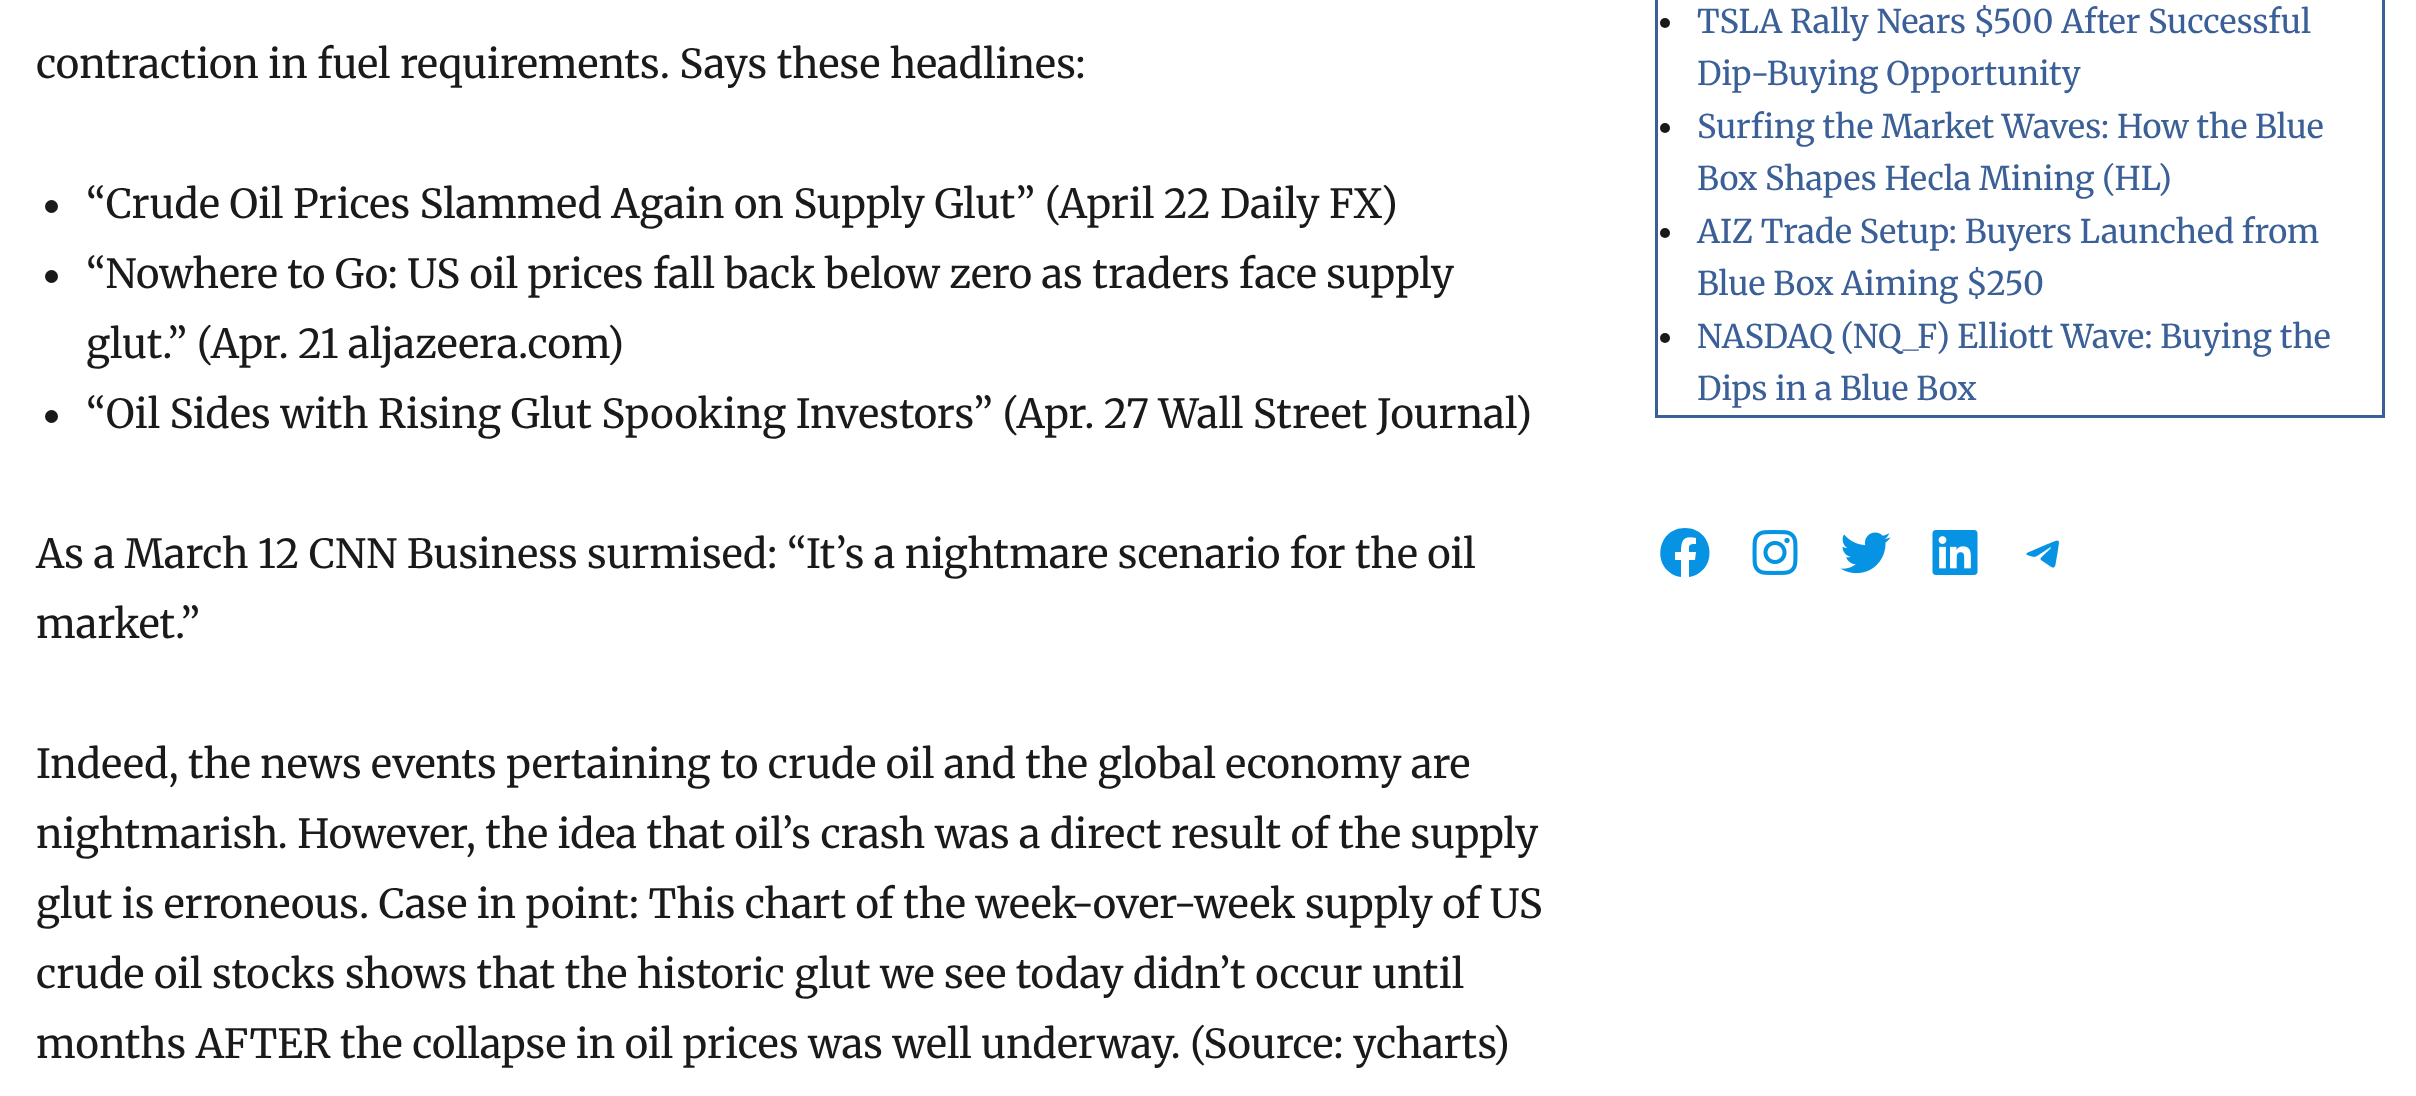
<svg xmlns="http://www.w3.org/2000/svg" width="2416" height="1096">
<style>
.a{font:40px Merriweather;fill:#1a1a1a}
.b{font:32.5px Merriweather;fill:#3b6097}
</style>
<rect width="100%" height="100%" fill="#fff"/>
<circle fill="#1a1a1a" cx="51.5" cy="206.5" r="6.5"/>
<circle fill="#1a1a1a" cx="51.5" cy="276.5" r="6.5"/>
<circle fill="#1a1a1a" cx="51.5" cy="416.5" r="6.5"/>
<path fill="none" stroke="#3b6097" stroke-width="3" d="M1656.5 -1.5h727v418H1656.5z"/>
<circle fill="#1a1a1a" cx="1665" cy="23" r="5"/>
<circle fill="#1a1a1a" cx="1665" cy="128" r="5"/>
<circle fill="#1a1a1a" cx="1665" cy="233" r="5"/>
<circle fill="#1a1a1a" cx="1665" cy="338" r="5"/>
<path fill="#0693e3" d="M1685 528c-30 0-34 44-4 49v-17h-6v-8h6c0-11 2-17 15-14v6c-8 0-7 1-7 8h7l-1 8h-6v17c30-5 26-49-4-49z"/>
<image href="1.png" x="1752" y="530" width="46" height="45"/>
<image href="2.png" x="1840" y="532" width="51" height="42"/>
<image href="3.png" x="1932" y="530" width="46" height="45"/>
<image href="4.png" x="2026" y="540" width="33" height="28"/>
<text class="a" x="36" y="78">contraction in fuel requirements. Says these headlines:</text>
<text class="a" x="86" y="218">“Crude Oil Prices Slammed Again on Supply Glut” (April 22 Daily FX)</text>
<text class="a" x="86" y="288">“Nowhere to Go: US oil prices fall back below zero as traders face supply</text>
<text class="a" x="86" y="358">glut.” (Apr. 21 aljazeera.com)</text>
<text class="a" x="86" y="428">“Oil Sides with Rising Glut Spooking Investors” (Apr. 27 Wall Street Journal)</text>
<text class="a" x="36" y="568">As a March 12 CNN Business surmised: “It’s a nightmare scenario for the oil</text>
<text class="a" x="36" y="638">market.”</text>
<text class="a" x="36" y="778">Indeed, the news events pertaining to crude oil and the global economy are</text>
<text class="a" x="36" y="848">nightmarish. However, the idea that oil’s crash was a direct result of the supply</text>
<text class="a" x="36" y="918">glut is erroneous. Case in point: This chart of the week-over-week supply of US</text>
<text class="a" x="36" y="988">crude oil stocks shows that the historic glut we see today didn’t occur until</text>
<text class="a" x="36" y="1058">months AFTER the collapse in oil prices was well underway. (Source: ycharts)</text>
<text class="b" x="1697" y="33">TSLA Rally Nears $500 After Successful</text>
<text class="b" x="1697" y="85">Dip-Buying Opportunity</text>
<text class="b" x="1697" y="138">Surfing the Market Waves: How the Blue</text>
<text class="b" x="1697" y="190">Box Shapes Hecla Mining (HL)</text>
<text class="b" x="1697" y="243">AIZ Trade Setup: Buyers Launched from</text>
<text class="b" x="1697" y="295">Blue Box Aiming $250</text>
<text class="b" x="1697" y="348">NASDAQ (NQ_F) Elliott Wave: Buying the</text>
<text class="b" x="1697" y="400">Dips in a Blue Box</text>
</svg>
